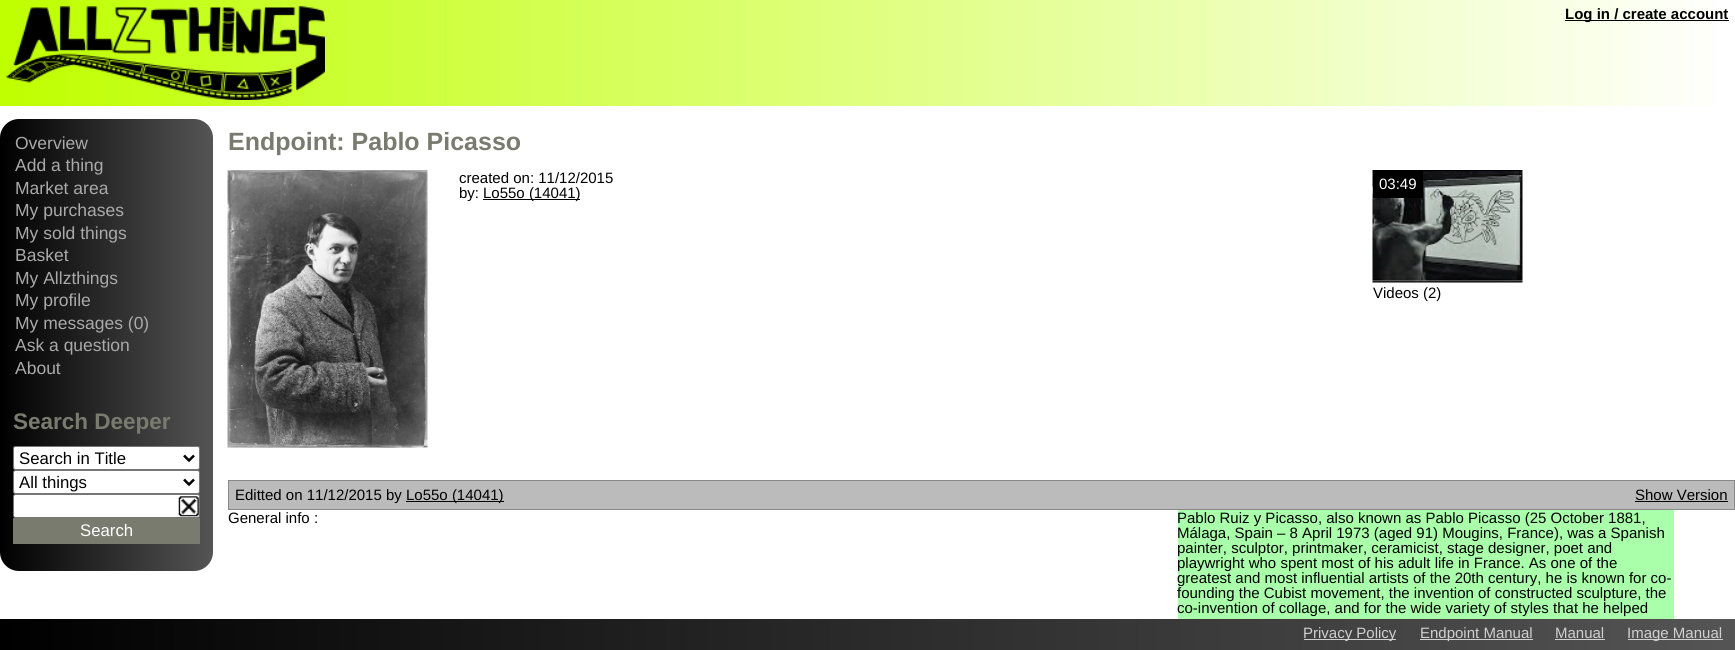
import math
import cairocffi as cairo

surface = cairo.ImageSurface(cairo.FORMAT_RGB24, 1735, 650)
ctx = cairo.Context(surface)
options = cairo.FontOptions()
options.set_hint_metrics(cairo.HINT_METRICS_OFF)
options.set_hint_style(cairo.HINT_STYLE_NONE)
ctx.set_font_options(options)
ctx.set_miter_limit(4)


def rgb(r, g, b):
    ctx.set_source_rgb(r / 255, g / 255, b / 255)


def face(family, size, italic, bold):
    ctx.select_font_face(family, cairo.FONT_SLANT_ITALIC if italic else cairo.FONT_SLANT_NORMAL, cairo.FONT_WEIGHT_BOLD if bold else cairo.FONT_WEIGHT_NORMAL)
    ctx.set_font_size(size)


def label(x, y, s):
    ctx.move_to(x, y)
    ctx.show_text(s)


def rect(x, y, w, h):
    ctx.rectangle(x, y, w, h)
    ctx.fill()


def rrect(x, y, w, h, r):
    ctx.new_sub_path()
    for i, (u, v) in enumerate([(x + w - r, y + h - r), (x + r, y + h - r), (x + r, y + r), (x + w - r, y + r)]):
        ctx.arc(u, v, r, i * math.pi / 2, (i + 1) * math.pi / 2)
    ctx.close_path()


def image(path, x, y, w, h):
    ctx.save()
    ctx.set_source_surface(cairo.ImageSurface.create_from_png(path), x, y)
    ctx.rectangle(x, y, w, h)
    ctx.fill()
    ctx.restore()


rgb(255, 255, 255)
ctx.paint()
gradient = cairo.LinearGradient(0, 53, 1735, 53)
gradient.add_color_stop_rgba(0, 0.749, 1, 0, 1)
gradient.add_color_stop_rgba(1, 1, 1, 1, 1)
ctx.set_source(gradient)
rect(0, 0, 1718, 106)
image('image0.png', 6, 6, 319, 94)
rgb(0, 0, 0)
rect(1565, 20, 164, 1)
face('Liberation Sans', 15, 0, 1)
label(1565, 19, 'Log in / create account')
gradient = cairo.LinearGradient(0, 345, 213, 345)
gradient.add_color_stop_rgba(0, 0, 0, 0, 1)
gradient.add_color_stop_rgba(1, 0.333, 0.333, 0.333, 1)
ctx.set_source(gradient)
rrect(0, 119, 213, 452, 19)
ctx.fill()
face('Liberation Sans', 17.5, 0, 0)
rgb(170, 170, 170)
label(15, 149, 'Overview')
label(15, 171, 'Add a thing')
label(15, 194, 'Market area')
label(15, 216, 'My purchases')
label(15, 239, 'My sold things')
label(15, 261, 'Basket')
label(15, 284, 'My Allzthings')
label(15, 306, 'My profile')
label(15, 329, 'My messages (0)')
label(15, 351, 'Ask a question')
label(15, 374, 'About')
face('Liberation Sans', 22.5, 0, 1)
rgb(121, 123, 110)
label(13, 429, 'Search Deeper')
rgb(255, 255, 255)
rrect(13.5, 446.5, 186, 23, 2)
ctx.fill_preserve()
rgb(118, 118, 118)
ctx.set_line_width(1)
ctx.stroke()
ctx.new_path()
ctx.move_to(184, 455.5)
ctx.line_to(189, 460.5)
ctx.line_to(194, 455.5)
rgb(0, 0, 0)
ctx.set_line_width(2.5)
ctx.stroke()
face('Liberation Sans', 16.75, 0, 0)
label(19, 464, 'Search in Title')
rgb(255, 255, 255)
rrect(13.5, 470.5, 186, 23, 2)
ctx.fill_preserve()
rgb(118, 118, 118)
ctx.set_line_width(1)
ctx.stroke()
ctx.new_path()
ctx.move_to(184, 479.5)
ctx.line_to(189, 484.5)
ctx.line_to(194, 479.5)
rgb(0, 0, 0)
ctx.set_line_width(2.5)
ctx.stroke()
label(19, 488, 'All things')
rgb(255, 255, 255)
rrect(13.5, 494.5, 186, 23, 2)
ctx.fill_preserve()
rgb(118, 118, 118)
ctx.set_line_width(1)
ctx.stroke()
image('image1.png', 178, 496, 21, 21)
rgb(121, 123, 110)
rect(13, 518, 187, 26)
rgb(255, 255, 255)
label(80, 536, 'Search')
face('Liberation Sans', 25, 0, 1)
rgb(121, 123, 110)
label(228, 150, 'Endpoint: Pablo Picasso')
image('image2.png', 227, 170, 201, 278)
face('Liberation Sans', 15, 0, 0)
rgb(0, 0, 0)
label(459, 183, 'created on: 11/12/2015')
label(459, 198, 'by:')
rect(483, 199, 97, 1)
label(483, 198, 'Lo55o (14041)')
image('image3.png', 1372, 170, 151, 113)
rect(1373, 170, 50, 28)
rgb(255, 255, 255)
label(1379, 189, '03:49')
rgb(0, 0, 0)
label(1373, 298, 'Videos (2)')
rgb(187, 187, 187)
rect(229, 481, 1505, 28)
rgb(136, 136, 136)
rect(228, 480, 1507, 1)
rect(1734, 480, 1, 30)
rect(228, 509, 1507, 1)
rect(228, 480, 1, 30)
rgb(0, 0, 0)
label(235, 500, 'Editted on 11/12/2015 by')
rect(406, 501, 98, 1)
label(406, 500, 'Lo55o (14041)')
label(1635, 500, 'Show Version')
rect(1635, 501, 93, 1)
label(228, 523, 'General info :')
rgb(170, 255, 170)
rect(1178, 510, 496, 109)
rgb(0, 0, 0)
label(1177, 523, 'Pablo Ruiz y Picasso, also known as Pablo Picasso (25 October 1881,')
label(1177, 538, 'Málaga, Spain – 8 April 1973 (aged 91) Mougins, France), was a Spanish')
label(1177, 553, 'painter, sculptor, printmaker, ceramicist, stage designer, poet and')
label(1177, 568, 'playwright who spent most of his adult life in France. As one of the')
label(1177, 583, 'greatest and most influential artists of the 20th century, he is known for co-')
label(1177, 598, 'founding the Cubist movement, the invention of constructed sculpture, the')
label(1177, 613, 'co-invention of collage, and for the wide variety of styles that he helped')
gradient = cairo.LinearGradient(0, 634, 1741, 634)
gradient.add_color_stop_rgba(0, 0, 0, 0, 1)
gradient.add_color_stop_rgba(1, 0.333, 0.333, 0.333, 1)
ctx.set_source(gradient)
rect(0, 619, 1735, 31)
rgb(208, 208, 208)
rect(1304, 639, 92, 1)
label(1303, 638, 'Privacy Policy')
rect(1420, 639, 113, 1)
label(1420, 638, 'Endpoint Manual')
label(1555, 638, 'Manual')
rect(1555, 639, 50, 1)
rect(1628, 639, 95, 1)
label(1627, 638, 'Image Manual')
surface.write_to_png('render.png')
